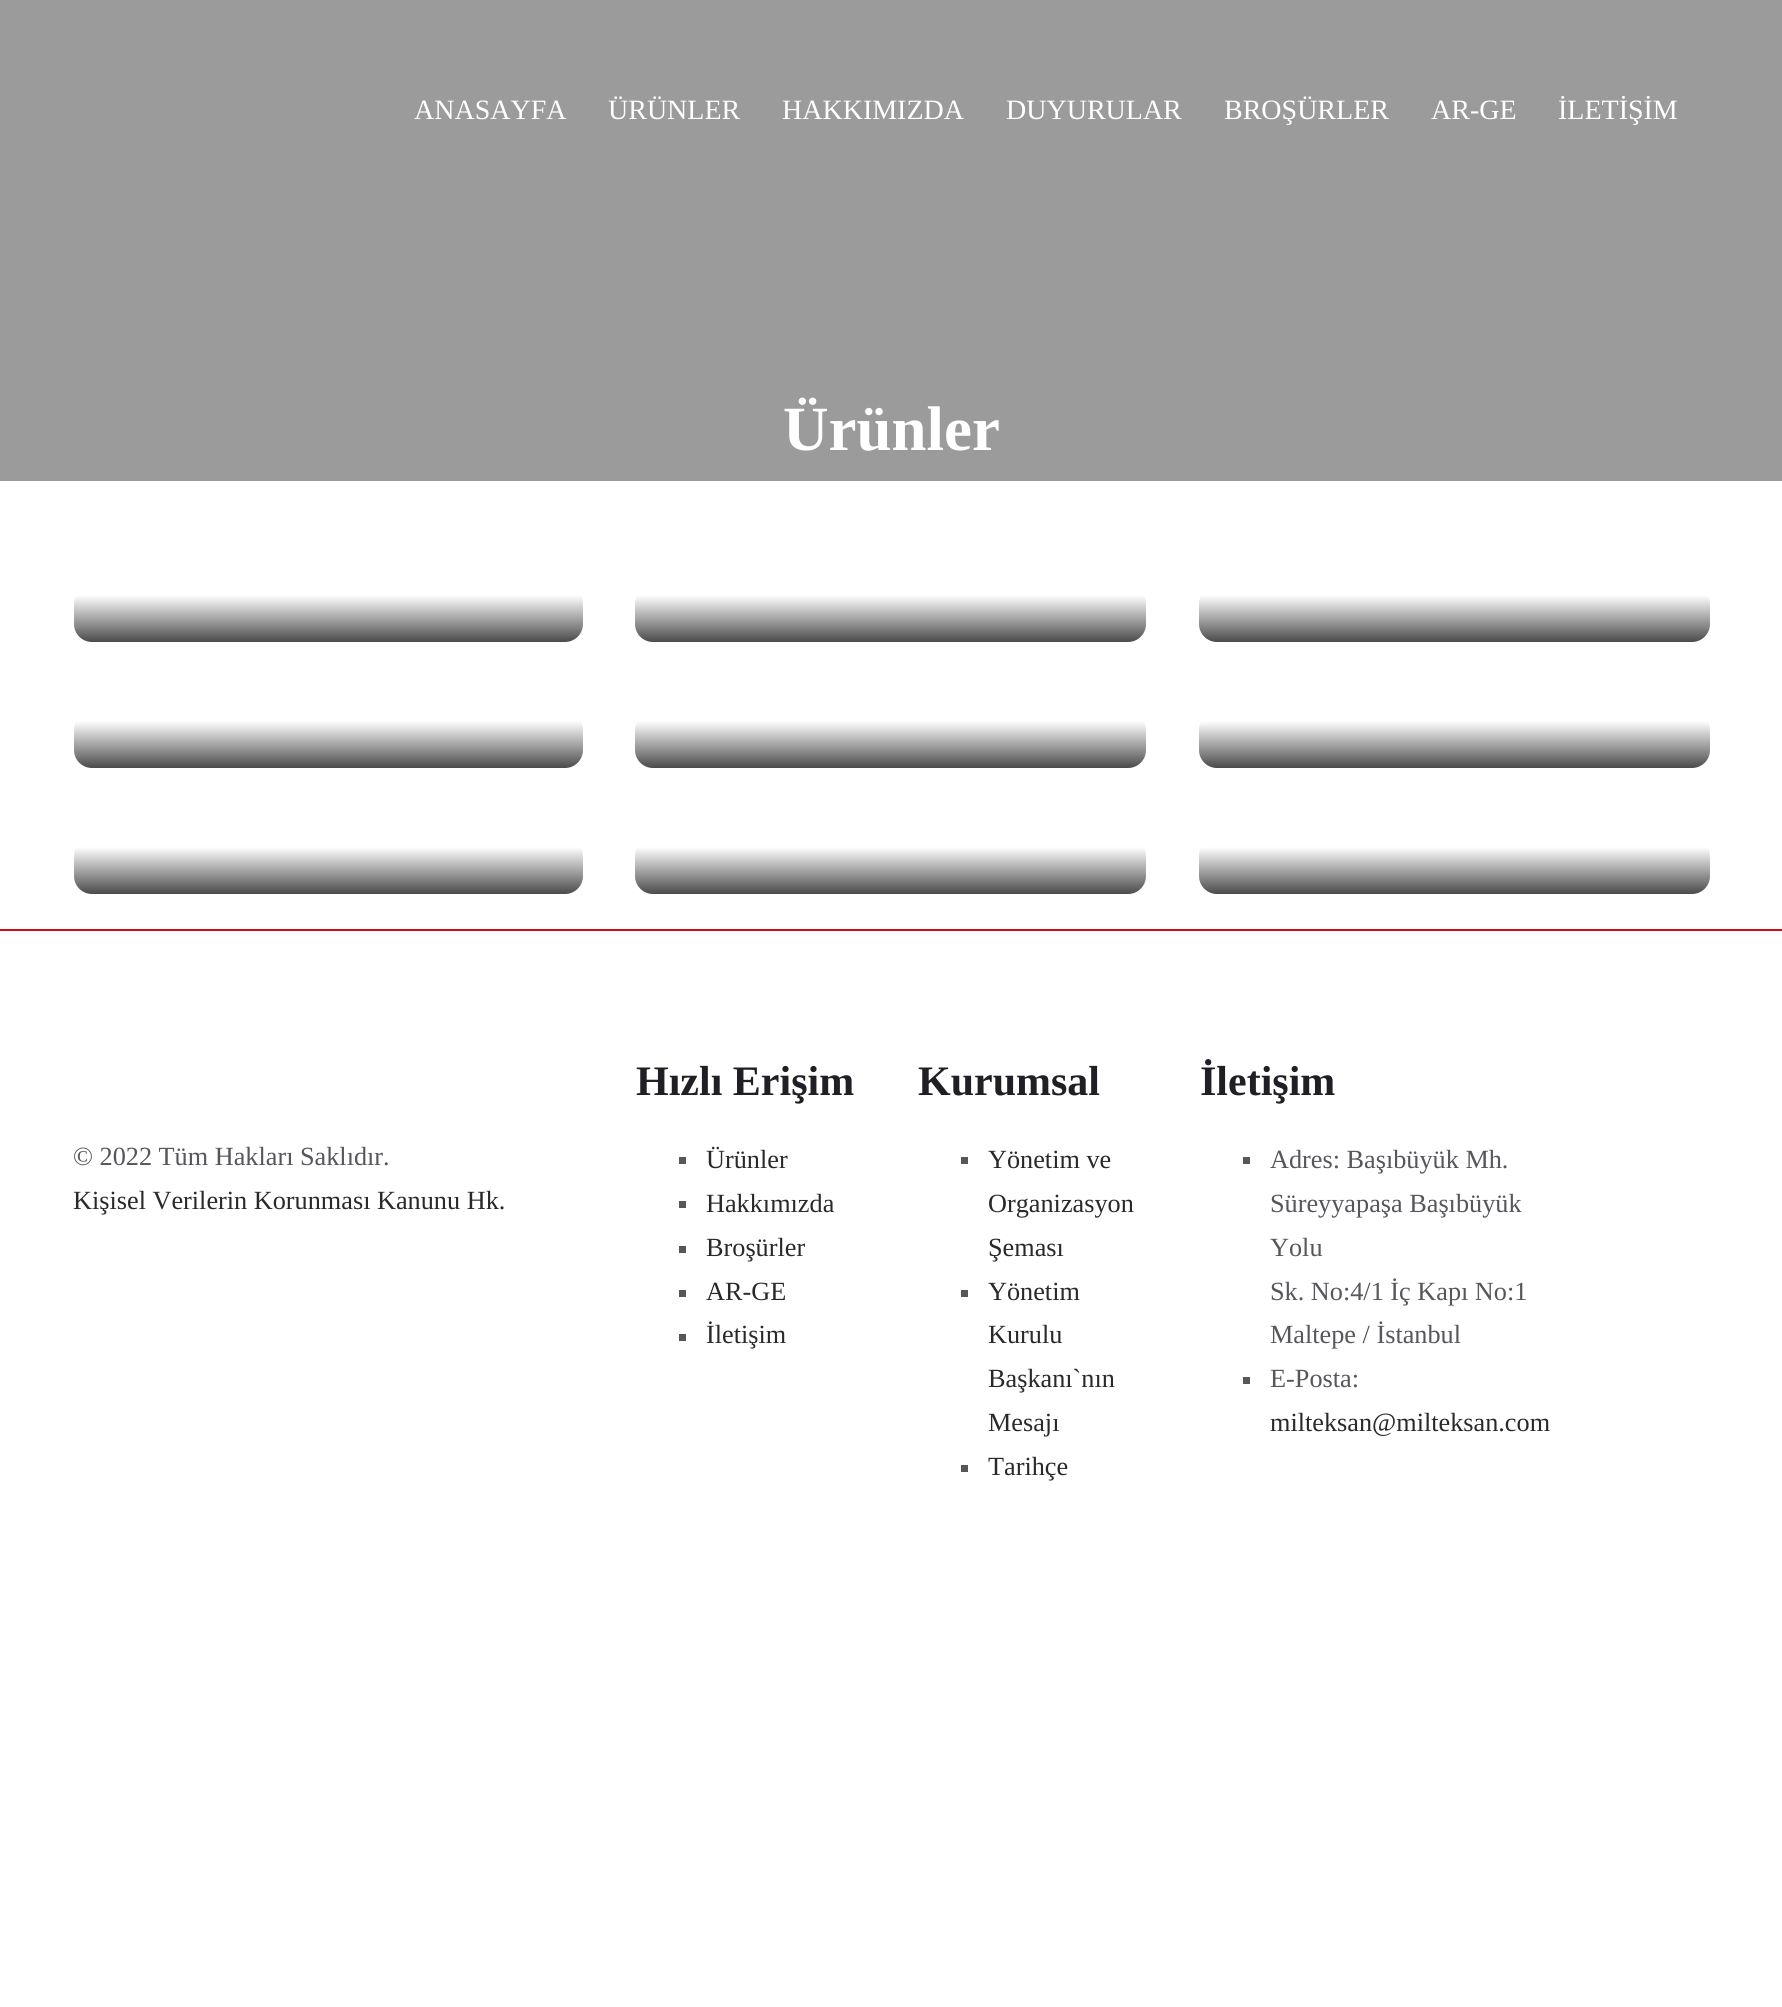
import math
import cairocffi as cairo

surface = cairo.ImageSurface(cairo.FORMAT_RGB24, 1782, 2007)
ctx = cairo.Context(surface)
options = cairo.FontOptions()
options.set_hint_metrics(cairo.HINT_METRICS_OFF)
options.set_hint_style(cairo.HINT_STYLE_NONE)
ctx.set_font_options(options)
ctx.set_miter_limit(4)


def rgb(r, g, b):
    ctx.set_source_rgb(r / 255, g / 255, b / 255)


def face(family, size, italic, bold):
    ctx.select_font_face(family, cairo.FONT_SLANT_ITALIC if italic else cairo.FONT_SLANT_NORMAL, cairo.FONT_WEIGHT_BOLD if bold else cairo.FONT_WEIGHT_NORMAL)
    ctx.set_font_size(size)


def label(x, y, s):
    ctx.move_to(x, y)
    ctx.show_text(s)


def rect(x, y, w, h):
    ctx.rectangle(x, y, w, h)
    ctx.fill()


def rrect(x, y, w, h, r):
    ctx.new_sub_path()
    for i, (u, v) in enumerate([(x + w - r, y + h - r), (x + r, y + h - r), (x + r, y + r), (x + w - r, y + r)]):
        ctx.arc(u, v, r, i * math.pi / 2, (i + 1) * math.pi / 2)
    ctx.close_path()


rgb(255, 255, 255)
ctx.paint()
rgb(155, 155, 155)
rect(0, 0, 1782, 481)
face('Liberation Serif', 28, 0, 0)
rgb(255, 255, 255)
label(414, 119, 'ANASAYFA')
label(608, 119, 'ÜRÜNLER')
label(782, 119, 'HAKKIMIZDA')
label(1006, 119, 'DUYURULAR')
label(1224, 119, 'BROŞÜRLER')
label(1431, 119, 'AR-GE')
label(1558, 119, 'İLETİŞİM')
face('Liberation Serif', 63, 0, 1)
label(783, 450, 'Ürünler')
ctx.save()
rrect(74, 586, 509, 56, 18)
ctx.clip()
gradient = cairo.LinearGradient(328, 595, 328, 642)
gradient.add_color_stop_rgba(0, 1, 1, 1, 1)
gradient.add_color_stop_rgba(1, 0.294, 0.294, 0.294, 1)
ctx.set_source(gradient)
ctx.new_path()
ctx.move_to(74, 595)
ctx.line_to(583, 595)
ctx.line_to(583, 624)
ctx.curve_to(583, 634, 575, 642, 565, 642)
ctx.line_to(92, 642)
ctx.curve_to(82, 642, 74, 634, 74, 624)
ctx.close_path()
ctx.fill()
ctx.restore()
ctx.save()
rrect(635, 586, 511, 56, 18)
ctx.clip()
gradient = cairo.LinearGradient(891, 595, 891, 642)
gradient.add_color_stop_rgba(0, 1, 1, 1, 1)
gradient.add_color_stop_rgba(1, 0.294, 0.294, 0.294, 1)
ctx.set_source(gradient)
ctx.new_path()
ctx.move_to(635, 595)
ctx.line_to(1146, 595)
ctx.line_to(1146, 624)
ctx.curve_to(1146, 634, 1138, 642, 1128, 642)
ctx.line_to(653, 642)
ctx.curve_to(643, 642, 635, 634, 635, 624)
ctx.close_path()
ctx.fill()
ctx.restore()
ctx.save()
rrect(1199, 586, 511, 56, 18)
ctx.clip()
gradient = cairo.LinearGradient(1454, 595, 1454, 642)
gradient.add_color_stop_rgba(0, 1, 1, 1, 1)
gradient.add_color_stop_rgba(1, 0.294, 0.294, 0.294, 1)
ctx.set_source(gradient)
ctx.new_path()
ctx.move_to(1199, 595)
ctx.line_to(1710, 595)
ctx.line_to(1710, 624)
ctx.curve_to(1710, 634, 1702, 642, 1692, 642)
ctx.line_to(1217, 642)
ctx.curve_to(1207, 642, 1199, 634, 1199, 624)
ctx.close_path()
ctx.fill()
ctx.restore()
ctx.save()
rrect(74, 712, 509, 56, 18)
ctx.clip()
gradient = cairo.LinearGradient(328, 721, 328, 768)
gradient.add_color_stop_rgba(0, 1, 1, 1, 1)
gradient.add_color_stop_rgba(1, 0.294, 0.294, 0.294, 1)
ctx.set_source(gradient)
ctx.new_path()
ctx.move_to(74, 721)
ctx.line_to(583, 721)
ctx.line_to(583, 750)
ctx.curve_to(583, 760, 575, 768, 565, 768)
ctx.line_to(92, 768)
ctx.curve_to(82, 768, 74, 760, 74, 750)
ctx.close_path()
ctx.fill()
ctx.restore()
ctx.save()
rrect(635, 712, 511, 56, 18)
ctx.clip()
gradient = cairo.LinearGradient(891, 721, 891, 768)
gradient.add_color_stop_rgba(0, 1, 1, 1, 1)
gradient.add_color_stop_rgba(1, 0.294, 0.294, 0.294, 1)
ctx.set_source(gradient)
ctx.new_path()
ctx.move_to(635, 721)
ctx.line_to(1146, 721)
ctx.line_to(1146, 750)
ctx.curve_to(1146, 760, 1138, 768, 1128, 768)
ctx.line_to(653, 768)
ctx.curve_to(643, 768, 635, 760, 635, 750)
ctx.close_path()
ctx.fill()
ctx.restore()
ctx.save()
rrect(1199, 712, 511, 56, 18)
ctx.clip()
gradient = cairo.LinearGradient(1454, 721, 1454, 768)
gradient.add_color_stop_rgba(0, 1, 1, 1, 1)
gradient.add_color_stop_rgba(1, 0.294, 0.294, 0.294, 1)
ctx.set_source(gradient)
ctx.new_path()
ctx.move_to(1199, 721)
ctx.line_to(1710, 721)
ctx.line_to(1710, 750)
ctx.curve_to(1710, 760, 1702, 768, 1692, 768)
ctx.line_to(1217, 768)
ctx.curve_to(1207, 768, 1199, 760, 1199, 750)
ctx.close_path()
ctx.fill()
ctx.restore()
ctx.save()
rrect(74, 838, 509, 56, 18)
ctx.clip()
gradient = cairo.LinearGradient(328, 847, 328, 894)
gradient.add_color_stop_rgba(0, 1, 1, 1, 1)
gradient.add_color_stop_rgba(1, 0.294, 0.294, 0.294, 1)
ctx.set_source(gradient)
ctx.new_path()
ctx.move_to(74, 847)
ctx.line_to(583, 847)
ctx.line_to(583, 876)
ctx.curve_to(583, 886, 575, 894, 565, 894)
ctx.line_to(92, 894)
ctx.curve_to(82, 894, 74, 886, 74, 876)
ctx.close_path()
ctx.fill()
ctx.restore()
ctx.save()
rrect(635, 838, 511, 56, 18)
ctx.clip()
gradient = cairo.LinearGradient(891, 847, 891, 894)
gradient.add_color_stop_rgba(0, 1, 1, 1, 1)
gradient.add_color_stop_rgba(1, 0.294, 0.294, 0.294, 1)
ctx.set_source(gradient)
ctx.new_path()
ctx.move_to(635, 847)
ctx.line_to(1146, 847)
ctx.line_to(1146, 876)
ctx.curve_to(1146, 886, 1138, 894, 1128, 894)
ctx.line_to(653, 894)
ctx.curve_to(643, 894, 635, 886, 635, 876)
ctx.close_path()
ctx.fill()
ctx.restore()
ctx.save()
rrect(1199, 838, 511, 56, 18)
ctx.clip()
gradient = cairo.LinearGradient(1454, 847, 1454, 894)
gradient.add_color_stop_rgba(0, 1, 1, 1, 1)
gradient.add_color_stop_rgba(1, 0.294, 0.294, 0.294, 1)
ctx.set_source(gradient)
ctx.new_path()
ctx.move_to(1199, 847)
ctx.line_to(1710, 847)
ctx.line_to(1710, 876)
ctx.curve_to(1710, 886, 1702, 894, 1692, 894)
ctx.line_to(1217, 894)
ctx.curve_to(1207, 894, 1199, 886, 1199, 876)
ctx.close_path()
ctx.fill()
ctx.restore()
rgb(211, 9, 21)
rect(0, 929, 1782, 2)
face('Liberation Serif', 26.25, 0, 0)
rgb(86, 86, 91)
label(73, 1165, '© 2022 Tüm Hakları Saklıdır.')
rgb(41, 41, 41)
label(73, 1209, 'Kişisel Verilerin Korunması Kanunu Hk.')
face('Liberation Serif', 42, 0, 1)
rgb(31, 31, 37)
label(636, 1095, 'Hızlı Erişim')
rgb(86, 86, 91)
rect(679, 1157, 7, 7)
face('Liberation Serif', 26.25, 0, 0)
rgb(41, 41, 41)
label(706, 1168, 'Ürünler')
rgb(86, 86, 91)
rect(679, 1201, 7, 7)
rgb(41, 41, 41)
label(706, 1212, 'Hakkımızda')
rgb(86, 86, 91)
rect(679, 1246, 7, 7)
rgb(41, 41, 41)
label(706, 1256, 'Broşürler')
rgb(86, 86, 91)
rect(679, 1290, 7, 7)
rgb(41, 41, 41)
label(706, 1300, 'AR-GE')
rgb(86, 86, 91)
rect(679, 1334, 7, 7)
rgb(41, 41, 41)
label(706, 1343, 'İletişim')
face('Liberation Serif', 42, 0, 1)
rgb(31, 31, 37)
label(918, 1095, 'Kurumsal')
rgb(86, 86, 91)
rect(961, 1157, 7, 7)
face('Liberation Serif', 26.25, 0, 0)
rgb(41, 41, 41)
label(988, 1168, 'Yönetim ve')
label(988, 1212, 'Organizasyon')
label(988, 1256, 'Şeması')
rgb(86, 86, 91)
rect(961, 1290, 7, 7)
rgb(41, 41, 41)
label(988, 1300, 'Yönetim')
label(988, 1343, 'Kurulu')
label(988, 1387, 'Başkanı`nın')
label(988, 1431, 'Mesajı')
rgb(86, 86, 91)
rect(961, 1465, 7, 7)
rgb(41, 41, 41)
label(988, 1475, 'Tarihçe')
face('Liberation Serif', 42, 0, 1)
rgb(31, 31, 37)
label(1200, 1095, 'İletişim')
rgb(86, 86, 91)
rect(1243, 1157, 7, 7)
face('Liberation Serif', 26.25, 0, 0)
label(1270, 1168, 'Adres: Başıbüyük Mh.')
label(1270, 1212, 'Süreyyapaşa Başıbüyük')
label(1270, 1256, 'Yolu')
label(1270, 1300, 'Sk. No:4/1 İç Kapı No:1')
label(1270, 1343, 'Maltepe / İstanbul')
rect(1243, 1377, 7, 7)
label(1270, 1387, 'E-Posta:')
rgb(41, 41, 41)
label(1270, 1431, 'milteksan@milteksan.com')
surface.write_to_png('render.png')
